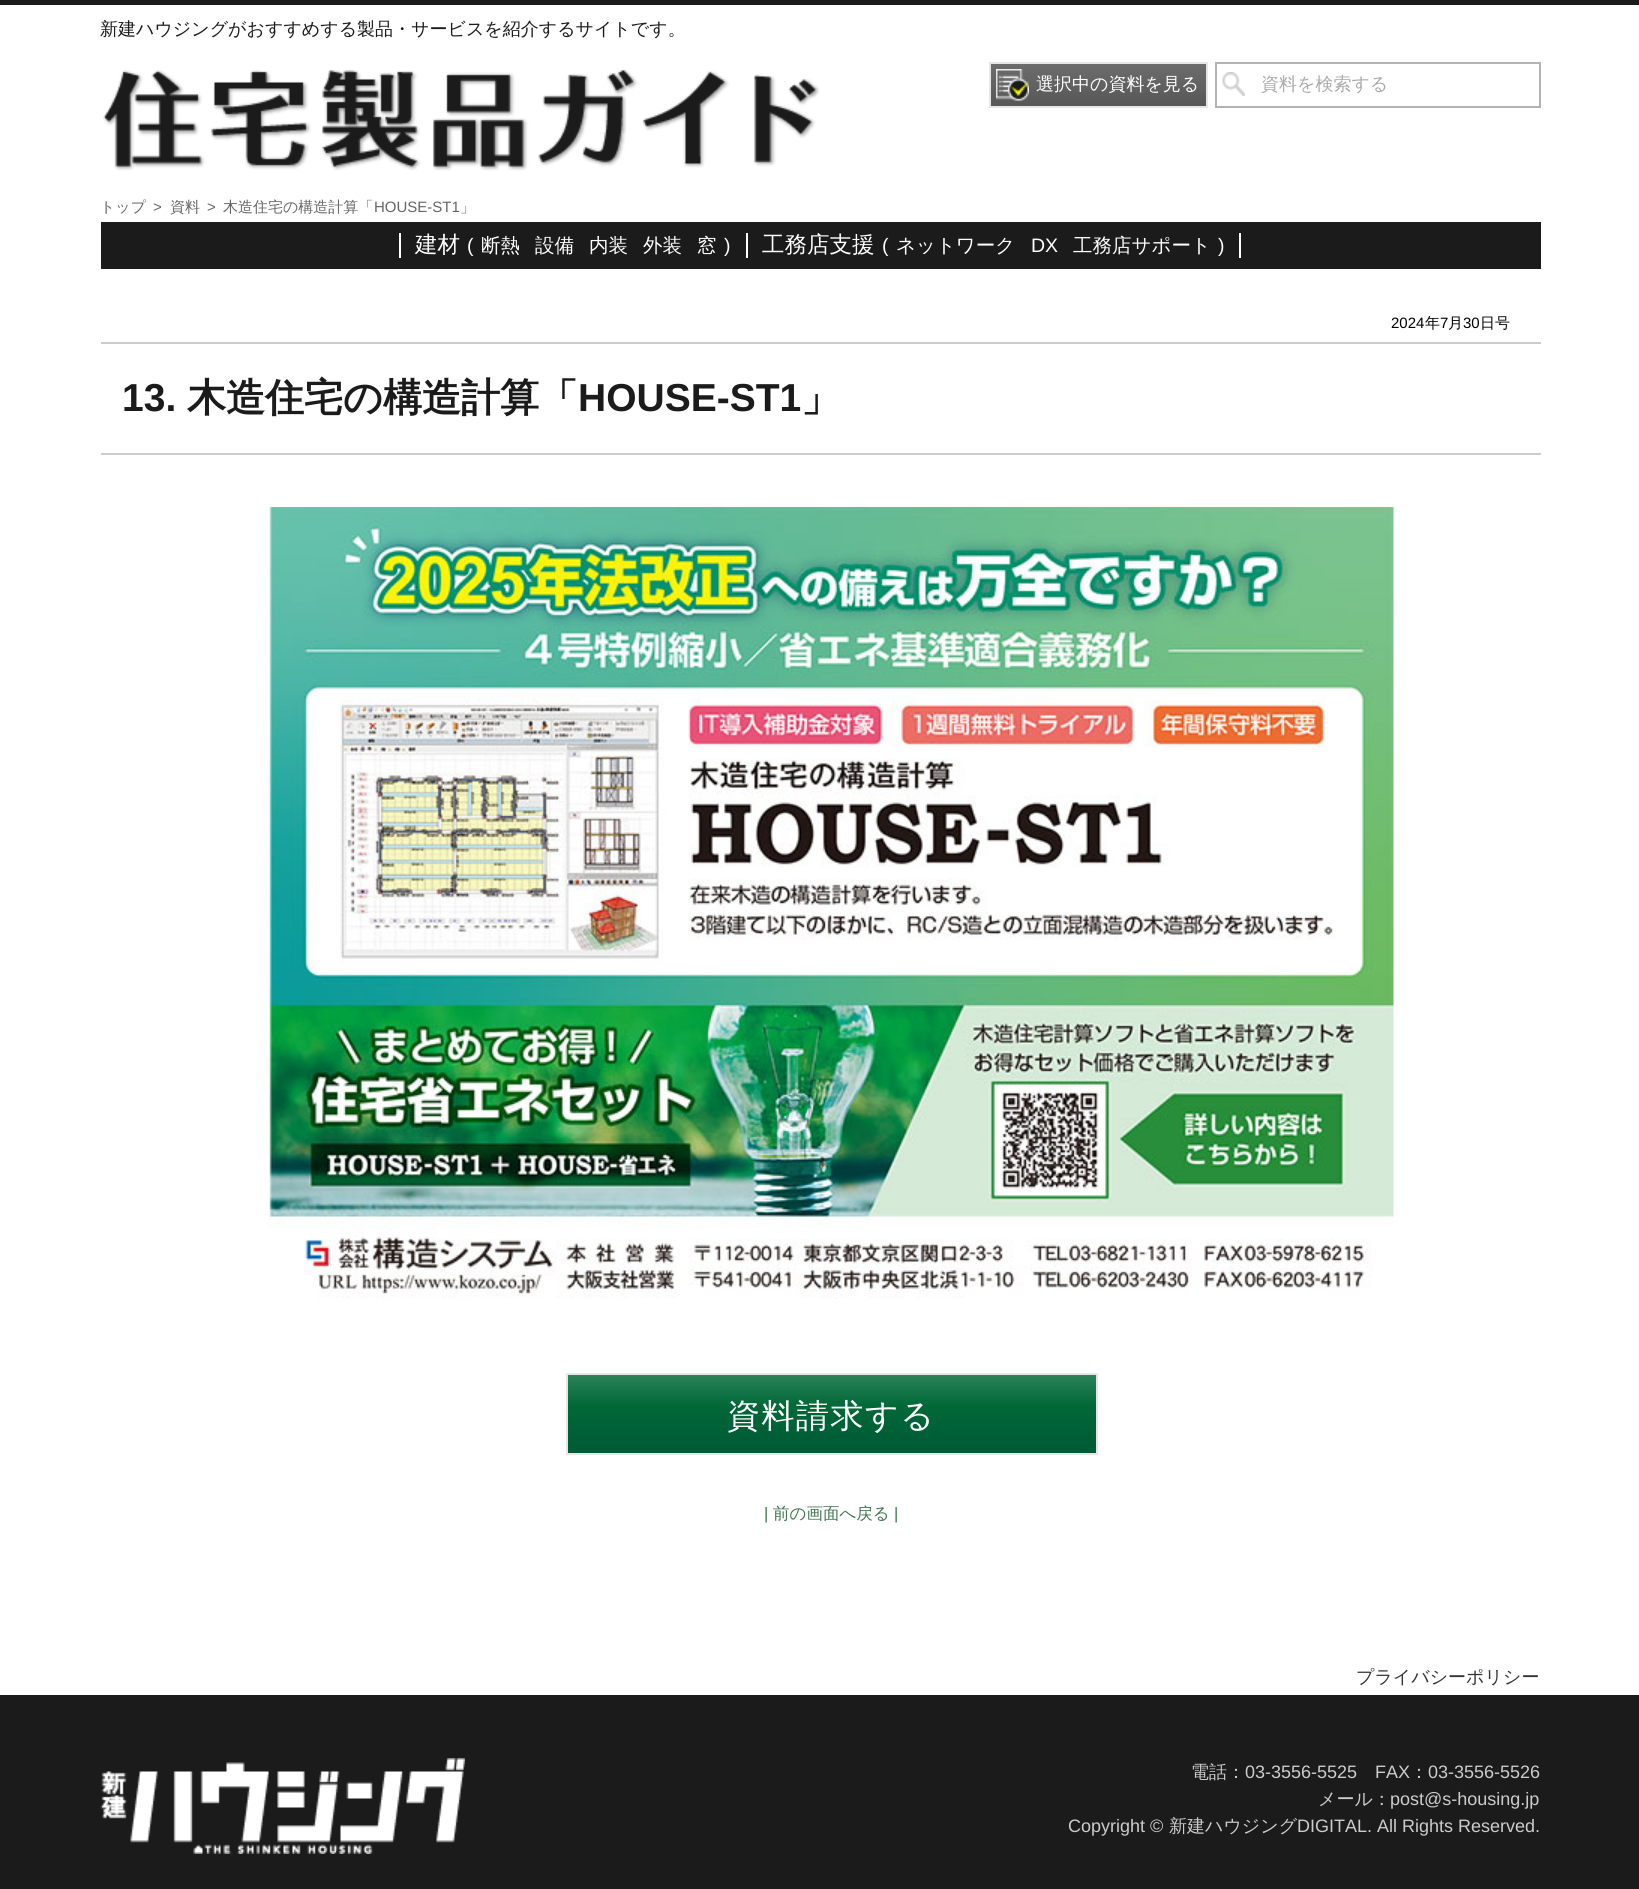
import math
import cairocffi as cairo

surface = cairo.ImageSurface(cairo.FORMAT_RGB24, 1639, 1889)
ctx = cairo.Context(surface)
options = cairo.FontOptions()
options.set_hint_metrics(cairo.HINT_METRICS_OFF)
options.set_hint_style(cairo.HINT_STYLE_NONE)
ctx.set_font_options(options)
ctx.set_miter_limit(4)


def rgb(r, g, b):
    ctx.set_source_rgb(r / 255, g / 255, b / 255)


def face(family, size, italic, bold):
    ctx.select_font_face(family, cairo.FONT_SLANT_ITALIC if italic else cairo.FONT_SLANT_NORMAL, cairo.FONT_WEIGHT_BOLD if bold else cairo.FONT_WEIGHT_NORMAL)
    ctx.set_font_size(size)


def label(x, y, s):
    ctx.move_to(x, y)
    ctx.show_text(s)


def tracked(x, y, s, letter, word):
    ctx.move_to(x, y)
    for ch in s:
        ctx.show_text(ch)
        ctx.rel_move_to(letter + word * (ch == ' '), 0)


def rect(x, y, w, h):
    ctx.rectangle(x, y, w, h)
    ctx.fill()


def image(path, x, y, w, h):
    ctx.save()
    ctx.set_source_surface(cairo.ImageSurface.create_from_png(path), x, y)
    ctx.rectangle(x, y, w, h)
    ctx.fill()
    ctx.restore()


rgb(255, 255, 255)
ctx.paint()
rgb(27, 27, 27)
rect(0, 0, 1639, 5)
face('WenQuanYi Zen Hei Medium', 18, 0, 0)
label(100, 35, '新建ハウジングがおすすめする製品・サービスを紹介するサイトです。')
image('image0.png', 103, 69, 717, 102)
gradient = cairo.LinearGradient(1098, 63, 1098, 107)
gradient.add_color_stop_rgba(0, 0.427, 0.427, 0.427, 1)
gradient.add_color_stop_rgba(1, 0.337, 0.337, 0.337, 1)
ctx.set_source(gradient)
rect(991, 64, 215, 42)
ctx.rectangle(990, 63, 217, 44)
rgb(230, 230, 230)
ctx.stroke()
image('image1.png', 996, 69, 33, 32)
rgb(255, 255, 255)
label(1036, 90, '選択中の資料を見る')
ctx.rectangle(1216, 63, 324, 44)
rgb(179, 179, 179)
ctx.stroke()
image('image2.png', 1222, 72, 23, 24)
rgb(170, 170, 170)
label(1261, 90, '資料を検索する')
face('WenQuanYi Zen Hei Medium', 15, 0, 0)
rgb(102, 102, 102)
label(100, 212, 'トップ')
face('Liberation Sans', 15, 0, 0)
label(153, 212, '>')
face('WenQuanYi Zen Hei Medium', 15, 0, 0)
label(170, 212, '資料')
face('Liberation Sans', 15, 0, 0)
label(207, 212, '>')
face('WenQuanYi Zen Hei Medium', 15, 0, 0)
label(223, 212, '木造住宅の構造計算「')
face('Liberation Sans', 15, 0, 0)
label(374, 212, 'HOUSE-ST1')
face('WenQuanYi Zen Hei Medium', 15, 0, 0)
label(460, 212, '」')
rgb(27, 27, 27)
rect(101, 222, 1440, 47)
rgb(255, 255, 255)
rect(746, 233, 2, 25)
rect(399, 233, 2, 25)
face('WenQuanYi Zen Hei Medium', 22.5, 0, 0)
label(415, 252, '建材')
face('Liberation Sans', 19.5, 0, 0)
label(467, 252, '(')
face('WenQuanYi Zen Hei Medium', 19.5, 0, 0)
label(481, 252, '断熱')
label(535, 252, '設備')
label(589, 252, '内装')
label(643, 252, '外装')
label(697, 252, '窓')
face('Liberation Sans', 19.5, 0, 0)
label(724, 252, ')')
rect(1239, 233, 2, 25)
face('WenQuanYi Zen Hei Medium', 22.5, 0, 0)
label(762, 252, '工務店支援')
face('Liberation Sans', 19.5, 0, 0)
label(882, 252, '(')
face('WenQuanYi Zen Hei Medium', 19.5, 0, 0)
label(896, 252, 'ネットワーク')
face('Liberation Sans', 19.5, 0, 0)
label(1031, 252, 'DX')
face('WenQuanYi Zen Hei Medium', 19.5, 0, 0)
label(1073, 252, '工務店サポート')
face('Liberation Sans', 19.5, 0, 0)
label(1218, 252, ')')
face('Liberation Sans', 15, 0, 0)
rgb(0, 0, 0)
label(1391, 328, '2024')
face('WenQuanYi Zen Hei Medium', 15, 0, 0)
label(1425, 328, '年')
face('Liberation Sans', 15, 0, 0)
label(1440, 328, '7')
face('WenQuanYi Zen Hei Medium', 15, 0, 0)
label(1448, 328, '月')
face('Liberation Sans', 15, 0, 0)
label(1463, 328, '30')
face('WenQuanYi Zen Hei Medium', 15, 0, 0)
label(1480, 328, '日号')
rgb(204, 204, 204)
rect(101, 342, 1440, 2)
rect(101, 453, 1440, 2)
face('Liberation Sans', 39, 0, 1)
rgb(27, 27, 27)
label(122, 411, '13.')
face('WenQuanYi Zen Hei', 39, 0, 1)
label(187, 411, '木造住宅の構造計算「')
face('Liberation Sans', 39, 0, 1)
label(578, 411, 'HOUSE-ST1')
face('WenQuanYi Zen Hei', 39, 0, 1)
label(801, 411, '」')
image('image3.png', 268, 507, 1126, 792)
gradient = cairo.LinearGradient(832, 1374, 832, 1454)
gradient.add_color_stop_rgba(0, 0.18, 0.514, 0.357, 1)
gradient.add_color_stop_rgba(0.4, 0, 0.408, 0.216, 1)
gradient.add_color_stop_rgba(1, 0, 0.349, 0.216, 1)
ctx.set_source(gradient)
rect(568, 1375, 528, 78)
ctx.rectangle(567, 1374, 530, 80)
rgb(230, 230, 230)
ctx.stroke()
face('WenQuanYi Zen Hei Medium', 33, 0, 0)
rgb(255, 255, 255)
tracked(727, 1427, '資料請求する', 1.5, 0)
face('Liberation Sans', 16.5, 0, 0)
rgb(64, 117, 79)
label(764, 1519, '|')
face('WenQuanYi Zen Hei Medium', 16.5, 0, 0)
label(773, 1519, '前の画面へ戻る')
face('Liberation Sans', 16.5, 0, 0)
label(894, 1519, '|')
rgb(27, 27, 27)
rect(0, 1695, 1639, 194)
face('WenQuanYi Zen Hei Medium', 18, 0, 0)
rgb(51, 51, 51)
label(1356, 1683, 'プライバシーポリシー')
image('image4.png', 100, 1758, 365, 96)
rgb(204, 204, 204)
label(1191, 1778, '電話：')
face('Liberation Sans', 18, 0, 0)
label(1245, 1778, '03-3556-5525')
label(1375, 1778, 'FAX')
face('WenQuanYi Zen Hei Medium', 18, 0, 0)
label(1410, 1778, '：')
face('Liberation Sans', 18, 0, 0)
label(1428, 1778, '03-3556-5526')
face('WenQuanYi Zen Hei Medium', 18, 0, 0)
label(1318, 1805, 'メール：')
face('Liberation Sans', 18, 0, 0)
label(1390, 1805, 'post@s-housing.jp')
label(1068, 1832, 'Copyright ©')
face('WenQuanYi Zen Hei Medium', 18, 0, 0)
label(1169, 1832, '新建ハウジング')
face('Liberation Sans', 18, 0, 0)
label(1297, 1832, 'DIGITAL. All Rights Reserved.')
surface.write_to_png('render.png')
